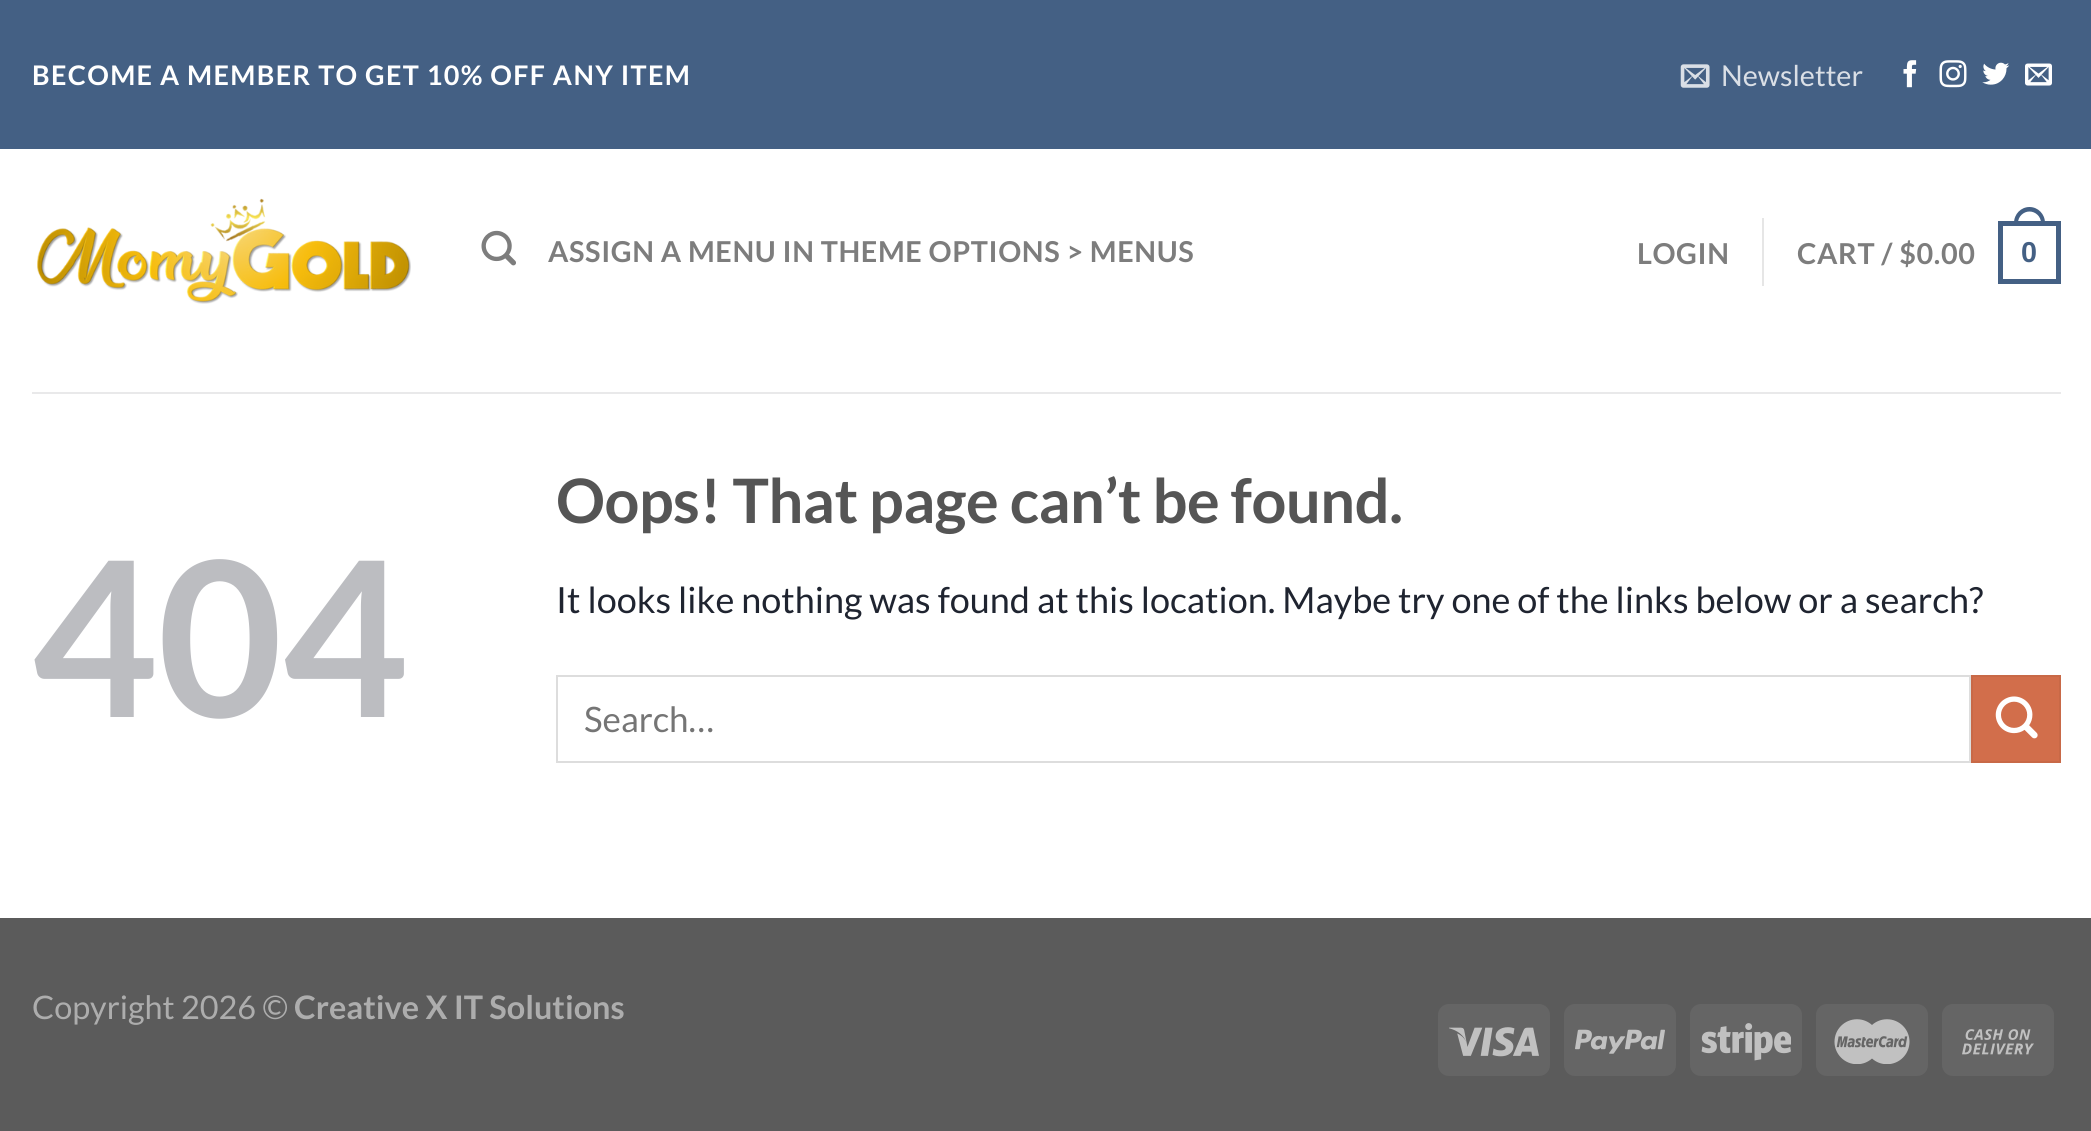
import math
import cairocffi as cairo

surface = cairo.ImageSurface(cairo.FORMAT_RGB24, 2091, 1131)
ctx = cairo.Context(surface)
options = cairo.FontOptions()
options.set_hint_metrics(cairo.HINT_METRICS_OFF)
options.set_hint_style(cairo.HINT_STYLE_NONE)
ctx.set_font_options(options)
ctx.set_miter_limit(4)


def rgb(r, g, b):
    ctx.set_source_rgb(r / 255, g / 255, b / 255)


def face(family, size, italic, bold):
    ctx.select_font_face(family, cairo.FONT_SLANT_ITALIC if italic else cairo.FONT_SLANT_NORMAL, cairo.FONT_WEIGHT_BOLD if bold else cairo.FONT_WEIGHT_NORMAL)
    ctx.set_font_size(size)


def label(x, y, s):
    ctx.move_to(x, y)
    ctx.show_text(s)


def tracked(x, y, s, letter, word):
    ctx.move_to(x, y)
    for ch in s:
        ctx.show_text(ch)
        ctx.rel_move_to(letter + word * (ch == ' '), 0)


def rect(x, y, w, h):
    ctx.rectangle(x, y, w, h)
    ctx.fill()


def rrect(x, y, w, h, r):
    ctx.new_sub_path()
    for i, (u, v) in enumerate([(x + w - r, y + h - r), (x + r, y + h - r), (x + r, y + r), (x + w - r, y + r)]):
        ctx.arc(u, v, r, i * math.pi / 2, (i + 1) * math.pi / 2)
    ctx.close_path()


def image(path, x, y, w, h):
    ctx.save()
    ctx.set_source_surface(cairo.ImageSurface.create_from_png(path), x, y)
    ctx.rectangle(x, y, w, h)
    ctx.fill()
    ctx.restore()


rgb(255, 255, 255)
ctx.paint()
rgb(68, 96, 132)
rect(0, 0, 2091, 149)
face('Lato', 27, 0, 1)
rgb(255, 255, 255)
tracked(32, 85, 'BECOME A MEMBER TO GET 10% OFF ANY ITEM', 1.35, 0)
image('image0.png', 1680, 64, 30, 24)
face('Lato', 28.8, 0, 0)
rgb(218, 223, 230)
label(1721, 86, 'Newsletter')
image('image1.png', 1903, 60, 14, 28)
image('image2.png', 1939, 60, 28, 28)
image('image3.png', 1982, 62, 28, 23)
image('image4.png', 2025, 63, 27, 23)
image('image5.png', 37, 198, 374, 106)
image('image6.png', 481, 230, 35, 36)
face('Lato', 28.8, 0, 1)
rgb(125, 125, 125)
tracked(548, 262, 'ASSIGN A MENU IN THEME OPTIONS > MENUS', 0.6, 0)
tracked(1637, 264, 'LOGIN', 0.6, 0)
rgb(230, 230, 230)
rect(1762, 218, 2, 68)
rgb(125, 125, 125)
tracked(1797, 264, 'CART / $0.00', 0.6, 0)
ctx.rectangle(2000.5, 223.5, 58, 58)
rgb(68, 96, 132)
ctx.set_line_width(5)
ctx.stroke()
ctx.set_fill_rule(cairo.FILL_RULE_EVEN_ODD)
ctx.new_path()
ctx.move_to(2029.5, 207)
ctx.curve_to(2038, 207, 2045, 214, 2045, 223)
ctx.line_to(2045, 225)
ctx.line_to(2014, 225)
ctx.line_to(2014, 223)
ctx.curve_to(2014, 214, 2021, 207, 2029.5, 207)
ctx.close_path()
ctx.move_to(2029.5, 211.5)
ctx.curve_to(2035.5, 211.5, 2041, 216.5, 2041, 223)
ctx.line_to(2041, 225)
ctx.line_to(2018, 225)
ctx.line_to(2018, 223)
ctx.curve_to(2018, 216.5, 2023.5, 211.5, 2029.5, 211.5)
ctx.close_path()
ctx.fill()
face('Liberation Sans', 28.8, 0, 1)
tracked(2021, 262, '0', 0.6, 0)
rgb(233, 233, 234)
rect(32, 392, 2029, 2)
face('Lato', 216, 0, 1)
rgb(188, 189, 193)
label(32, 717, '404')
face('Lato', 61.25, 0, 1)
rgb(85, 85, 85)
tracked(556, 523, 'Oops! That page can’t be found.', -0.45, 0)
face('Lato', 36, 0, 0)
rgb(31, 36, 48)
label(556, 613, 'It looks like nothing was found at this location. Maybe try one of the links below or a search?')
ctx.rectangle(557, 676, 1413, 86)
rgb(221, 221, 221)
ctx.set_line_width(2)
ctx.stroke()
face('Lato', 35, 0, 0)
rgb(117, 117, 117)
label(584, 732, 'Search…')
rgb(210, 110, 75)
ctx.rectangle(1972, 676, 88, 86)
ctx.fill_preserve()
rgb(200, 105, 71)
ctx.stroke()
image('image7.png', 1995, 696, 43, 43)
rgb(91, 91, 91)
rect(0, 918, 2091, 213)
face('Lato', 32.4, 0, 0)
rgb(173, 173, 173)
label(32, 1019, 'Copyright 2026 ©')
face('Lato', 32.4, 0, 1)
label(294, 1019, 'Creative X IT Solutions')
rgb(101, 101, 101)
rrect(1438, 1004, 112, 72, 11)
ctx.fill()
image('image8.png', 1449, 1027, 90, 30)
rrect(1564, 1004, 112, 72, 11)
ctx.fill()
image('image9.png', 1575, 1029, 90, 25)
rrect(1690, 1004, 112, 72, 11)
ctx.fill()
image('image10.png', 1701, 1023, 90, 38)
rrect(1816, 1004, 112, 72, 11)
ctx.fill()
image('image11.png', 1834, 1019, 76, 45)
rrect(1942, 1004, 112, 72, 11)
ctx.fill()
image('image12.png', 1962, 1029, 72, 26)
surface.write_to_png('render.png')
